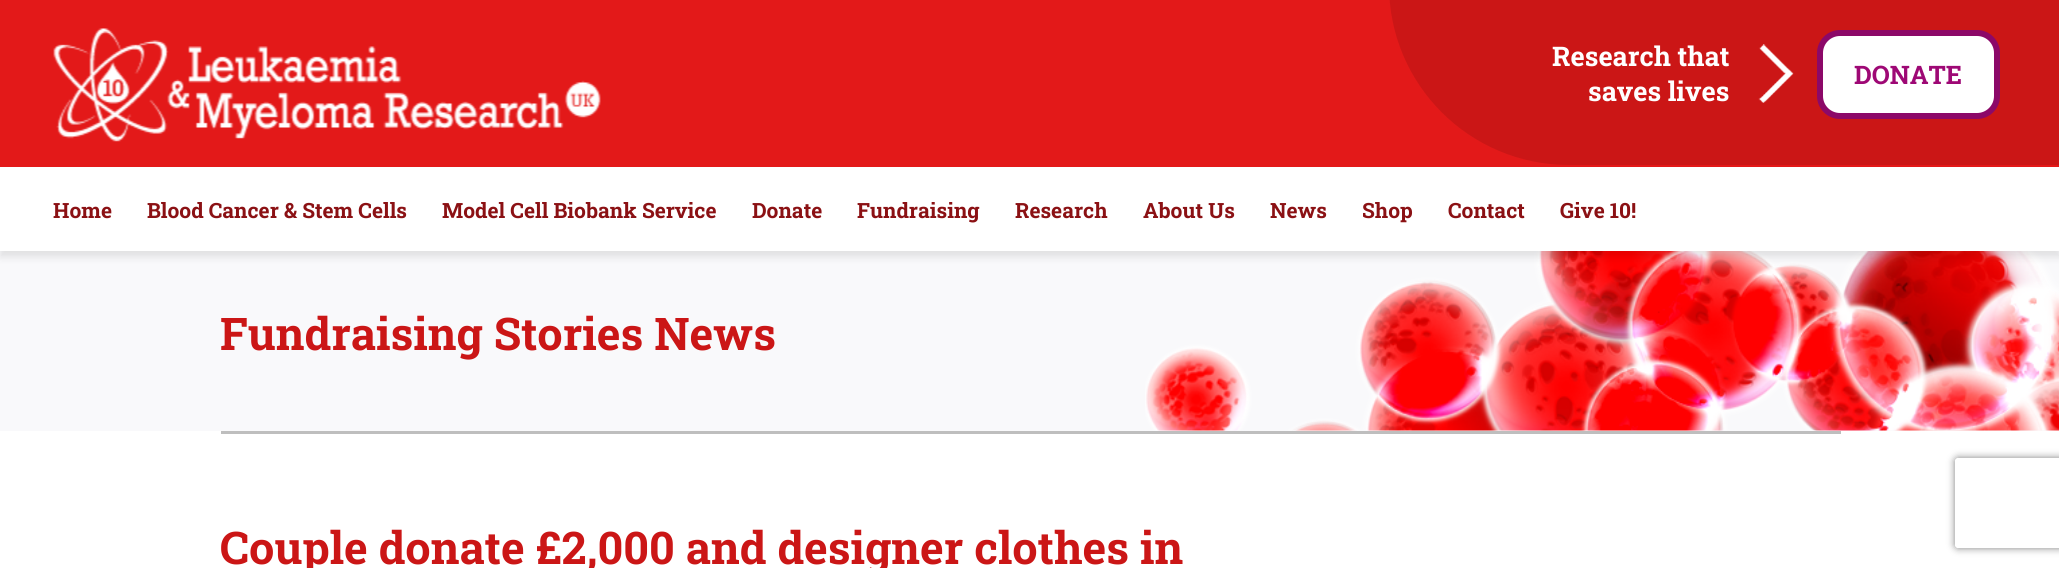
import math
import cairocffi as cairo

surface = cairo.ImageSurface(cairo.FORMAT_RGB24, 2059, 568)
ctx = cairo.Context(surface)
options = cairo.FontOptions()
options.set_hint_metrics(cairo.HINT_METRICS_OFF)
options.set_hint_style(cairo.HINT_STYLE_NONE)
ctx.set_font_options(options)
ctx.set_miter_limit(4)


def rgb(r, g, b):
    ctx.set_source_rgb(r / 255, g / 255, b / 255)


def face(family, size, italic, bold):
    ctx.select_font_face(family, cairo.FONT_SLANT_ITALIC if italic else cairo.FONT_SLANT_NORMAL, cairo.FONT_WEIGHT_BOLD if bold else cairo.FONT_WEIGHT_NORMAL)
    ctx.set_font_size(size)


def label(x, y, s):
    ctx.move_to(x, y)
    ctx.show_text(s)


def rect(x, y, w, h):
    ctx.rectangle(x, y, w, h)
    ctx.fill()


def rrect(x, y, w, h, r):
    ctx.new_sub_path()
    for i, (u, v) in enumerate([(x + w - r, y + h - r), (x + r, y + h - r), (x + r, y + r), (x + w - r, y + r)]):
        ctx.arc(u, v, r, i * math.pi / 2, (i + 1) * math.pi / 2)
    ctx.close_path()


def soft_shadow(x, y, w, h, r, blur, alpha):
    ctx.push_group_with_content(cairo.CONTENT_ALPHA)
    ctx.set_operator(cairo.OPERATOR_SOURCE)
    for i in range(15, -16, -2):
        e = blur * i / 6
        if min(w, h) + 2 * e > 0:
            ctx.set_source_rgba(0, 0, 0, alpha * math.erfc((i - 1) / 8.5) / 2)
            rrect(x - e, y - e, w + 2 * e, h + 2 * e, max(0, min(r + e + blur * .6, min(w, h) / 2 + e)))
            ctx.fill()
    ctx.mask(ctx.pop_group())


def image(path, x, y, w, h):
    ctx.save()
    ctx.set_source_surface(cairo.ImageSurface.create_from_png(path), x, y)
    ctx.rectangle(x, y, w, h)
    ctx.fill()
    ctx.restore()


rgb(255, 255, 255)
ctx.paint()
rgb(249, 249, 251)
rect(0, 251, 2059, 180)
image('image2.png', 1145, 251, 914, 180)
rgb(0, 0, 0)
soft_shadow(0, 6, 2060, 251, 0, 4, 0.1)
rgb(227, 25, 25)
rect(0, 0, 2059, 167)
image('image0.png', 53, 28, 548, 114)
rgb(203, 22, 22)
ctx.new_path()
ctx.move_to(1389, -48)
ctx.line_to(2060, -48)
ctx.line_to(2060, 165)
ctx.line_to(1569, 165)
ctx.curve_to(1469.5, 165, 1389, 84.5, 1389, -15)
ctx.close_path()
ctx.fill()
image('image1.png', 1758, 44, 36, 59)
face('Roboto Slab', 27, 0, 1)
rgb(255, 255, 255)
label(1552, 66, 'Research that')
label(1588, 101, 'saves lives')
rrect(1820, 33, 177, 83, 20)
ctx.fill_preserve()
rgb(140, 8, 104)
ctx.set_line_width(6)
ctx.stroke()
face('Roboto Slab', 25.5, 0, 1)
rgb(158, 8, 117)
label(1854, 84, 'DONATE')
rgb(255, 255, 255)
rect(0, 167, 2059, 84)
face('Roboto Slab', 21, 0, 1)
rgb(139, 17, 20)
label(53, 218, 'Home')
label(147, 218, 'Blood Cancer & Stem Cells')
label(442, 218, 'Model Cell Biobank Service')
label(752, 218, 'Donate')
label(857, 218, 'Fundraising')
label(1015, 218, 'Research')
label(1143, 218, 'About Us')
label(1270, 218, 'News')
label(1362, 218, 'Shop')
label(1448, 218, 'Contact')
label(1560, 218, 'Give 10!')
face('Roboto Slab', 45, 0, 1)
rgb(203, 22, 22)
label(220, 350, 'Fundraising Stories News')
rgb(190, 190, 190)
rect(221, 431, 1620, 3)
rgb(203, 22, 22)
label(220, 564, 'Couple donate £2,000 and designer clothes in')
ctx.save()
ctx.set_fill_rule(cairo.FILL_RULE_EVEN_ODD)
ctx.new_path()
ctx.move_to(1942, 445)
ctx.line_to(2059, 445)
ctx.line_to(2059, 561)
ctx.line_to(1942, 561)
ctx.close_path()
ctx.move_to(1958, 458)
ctx.line_to(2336, 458)
ctx.curve_to(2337.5, 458, 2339, 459.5, 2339, 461)
ctx.line_to(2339, 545)
ctx.curve_to(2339, 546.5, 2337.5, 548, 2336, 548)
ctx.line_to(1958, 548)
ctx.curve_to(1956.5, 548, 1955, 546.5, 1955, 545)
ctx.line_to(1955, 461)
ctx.curve_to(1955, 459.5, 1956.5, 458, 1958, 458)
ctx.close_path()
ctx.clip()
rgb(128, 128, 128)
soft_shadow(1955, 458, 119, 90, 3, 4, 1)
ctx.restore()
surface.write_to_png('render.png')
